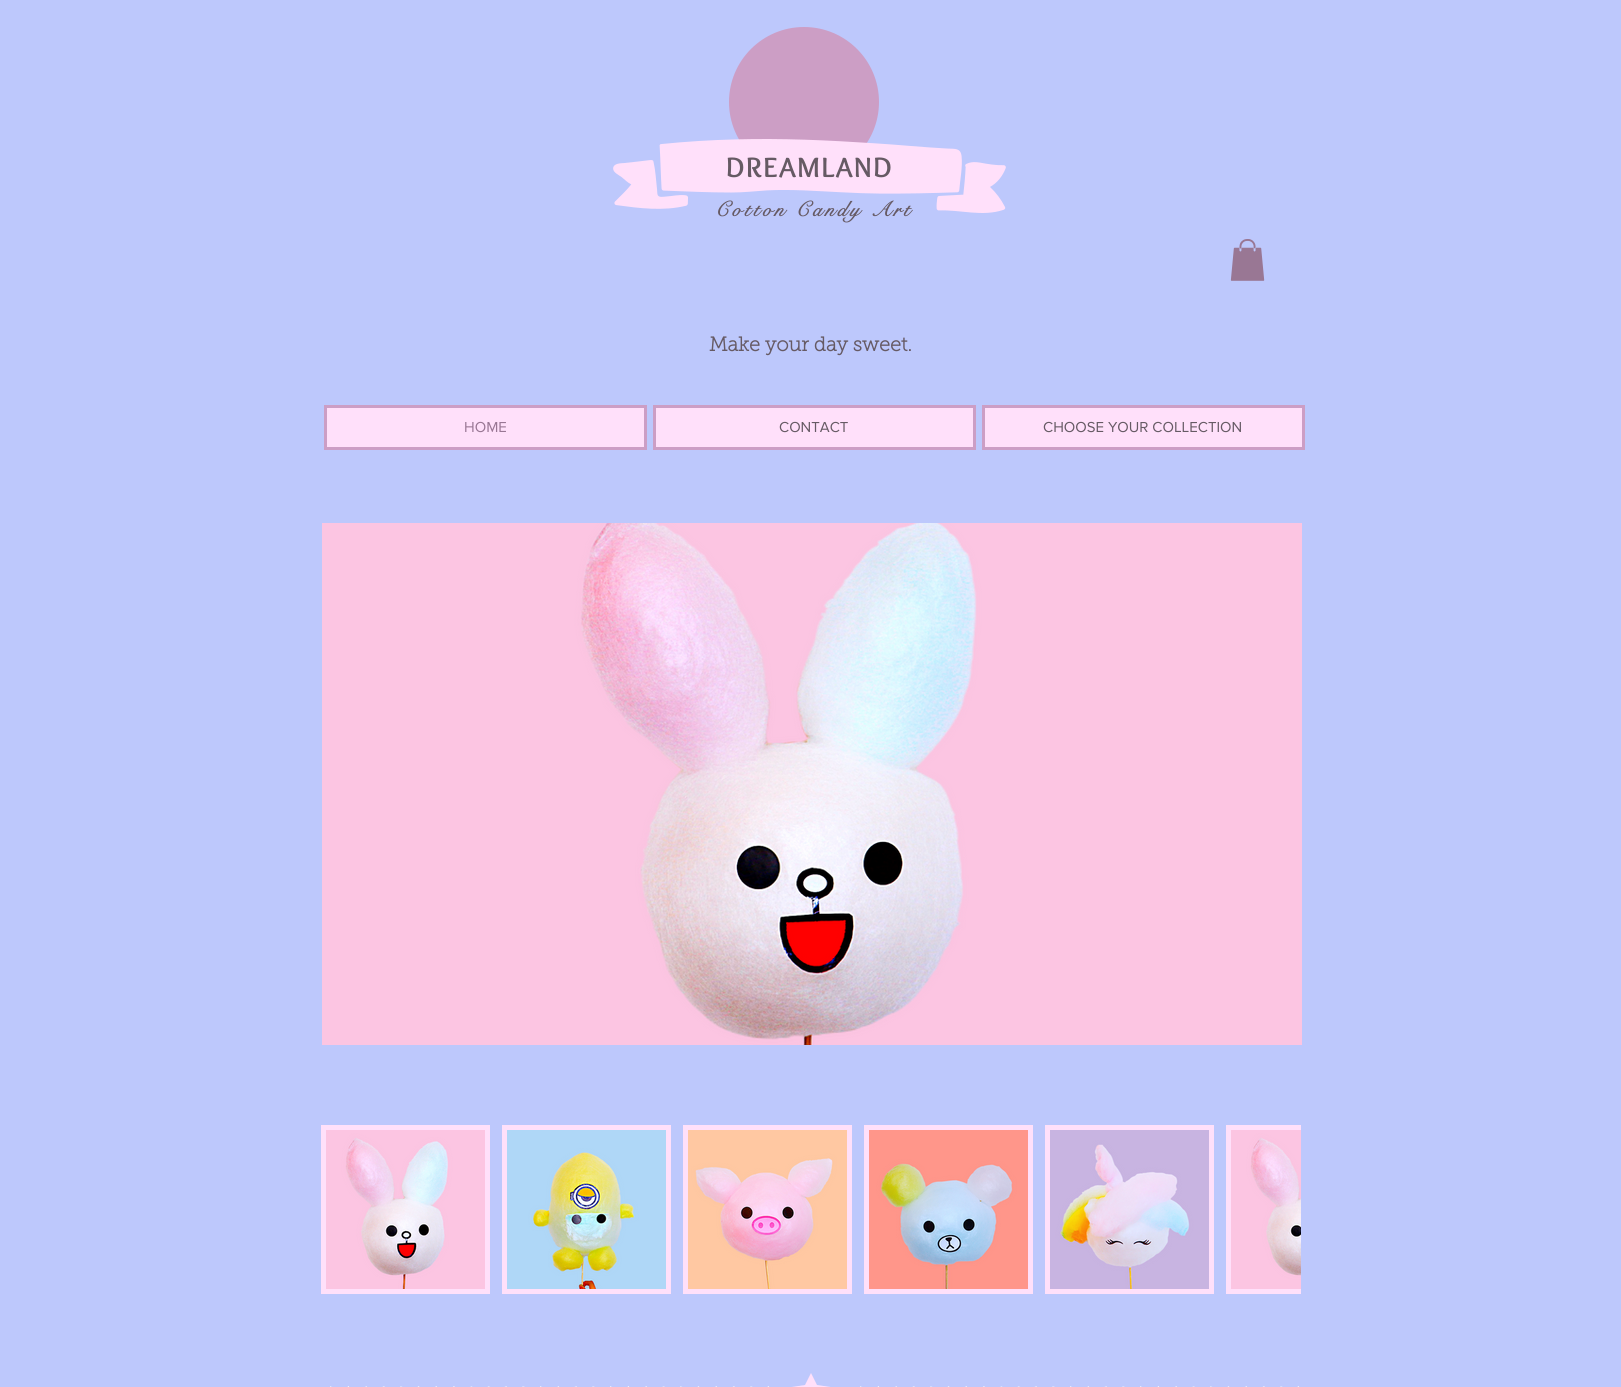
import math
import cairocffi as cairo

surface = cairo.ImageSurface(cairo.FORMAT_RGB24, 1621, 1387)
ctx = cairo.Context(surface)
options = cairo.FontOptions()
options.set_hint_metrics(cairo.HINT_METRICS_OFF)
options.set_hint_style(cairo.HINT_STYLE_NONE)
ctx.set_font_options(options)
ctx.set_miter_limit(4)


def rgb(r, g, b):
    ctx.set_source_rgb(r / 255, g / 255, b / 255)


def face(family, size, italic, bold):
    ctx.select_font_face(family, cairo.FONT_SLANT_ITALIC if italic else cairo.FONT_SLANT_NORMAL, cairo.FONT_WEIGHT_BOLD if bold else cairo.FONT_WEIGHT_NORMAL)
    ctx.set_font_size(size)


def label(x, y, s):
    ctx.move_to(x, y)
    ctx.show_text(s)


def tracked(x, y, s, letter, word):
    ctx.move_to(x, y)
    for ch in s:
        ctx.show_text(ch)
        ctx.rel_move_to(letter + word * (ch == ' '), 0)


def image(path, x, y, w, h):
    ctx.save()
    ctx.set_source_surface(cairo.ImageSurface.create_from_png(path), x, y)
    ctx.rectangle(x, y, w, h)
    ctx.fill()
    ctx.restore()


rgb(189, 200, 252)
ctx.paint()
rgb(204, 158, 197)
ctx.arc(804, 102, 75, 0, 2 * math.pi)
ctx.fill()
image('image0.png', 613, 139, 393, 74)
face('Overlock', 29, 0, 1)
rgb(102, 90, 100)
tracked(726, 177, 'DREAMLAND', 1.5, 0)
face('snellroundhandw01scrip', 21, 0, 1)
tracked(715, 216, 'Cotton Candy Art', 3.1, 0)
image('image1.png', 1230, 239, 35, 42)
face('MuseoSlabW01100', 20, 0, 1)
label(709, 351, 'Make your day sweet.')
rgb(255, 224, 250)
ctx.rectangle(325.5, 406.5, 320, 42)
ctx.fill_preserve()
rgb(204, 158, 197)
ctx.set_line_width(3)
ctx.stroke()
face('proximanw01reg', 15, 0, 0)
rgb(153, 119, 148)
label(464, 432, 'HOME')
rgb(255, 224, 250)
ctx.rectangle(654.5, 406.5, 320, 42)
ctx.fill_preserve()
rgb(204, 158, 197)
ctx.stroke()
rgb(102, 90, 100)
label(779, 432, 'CONTACT')
rgb(255, 224, 250)
ctx.rectangle(983.5, 406.5, 320, 42)
ctx.fill_preserve()
rgb(204, 158, 197)
ctx.stroke()
rgb(102, 90, 100)
label(1043, 432, 'CHOOSE YOUR COLLECTION')
image('image2.png', 322, 523, 980, 522)
ctx.rectangle(323.5, 1127.5, 164, 164)
rgb(255, 224, 250)
ctx.set_line_width(5)
ctx.stroke()
image('image3.png', 326, 1130, 159, 159)
ctx.rectangle(504.5, 1127.5, 164, 164)
ctx.stroke()
image('image4.png', 507, 1130, 159, 159)
ctx.rectangle(685.5, 1127.5, 164, 164)
ctx.stroke()
image('image5.png', 688, 1130, 159, 159)
ctx.rectangle(866.5, 1127.5, 164, 164)
ctx.stroke()
image('image6.png', 869, 1130, 159, 159)
ctx.rectangle(1047.5, 1127.5, 164, 164)
ctx.stroke()
image('image7.png', 1050, 1130, 159, 159)
ctx.save()
ctx.rectangle(321, 1125, 980, 169)
ctx.clip()
ctx.rectangle(1228.5, 1127.5, 164, 164)
ctx.stroke()
ctx.restore()
image('image8.png', 1231, 1130, 70, 159)
image('image9.png', 330, 1386, 439, 1)
ctx.new_path()
ctx.move_to(811, 1373)
ctx.line_to(817, 1385)
ctx.line_to(830.5, 1387)
ctx.line_to(820.5, 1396.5)
ctx.line_to(823, 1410)
ctx.line_to(811, 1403.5)
ctx.line_to(799, 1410)
ctx.line_to(801.5, 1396.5)
ctx.line_to(791.5, 1387)
ctx.line_to(805, 1385)
ctx.close_path()
ctx.fill()
image('image9.png', 860, 1386, 439, 1)
surface.write_to_png('render.png')
